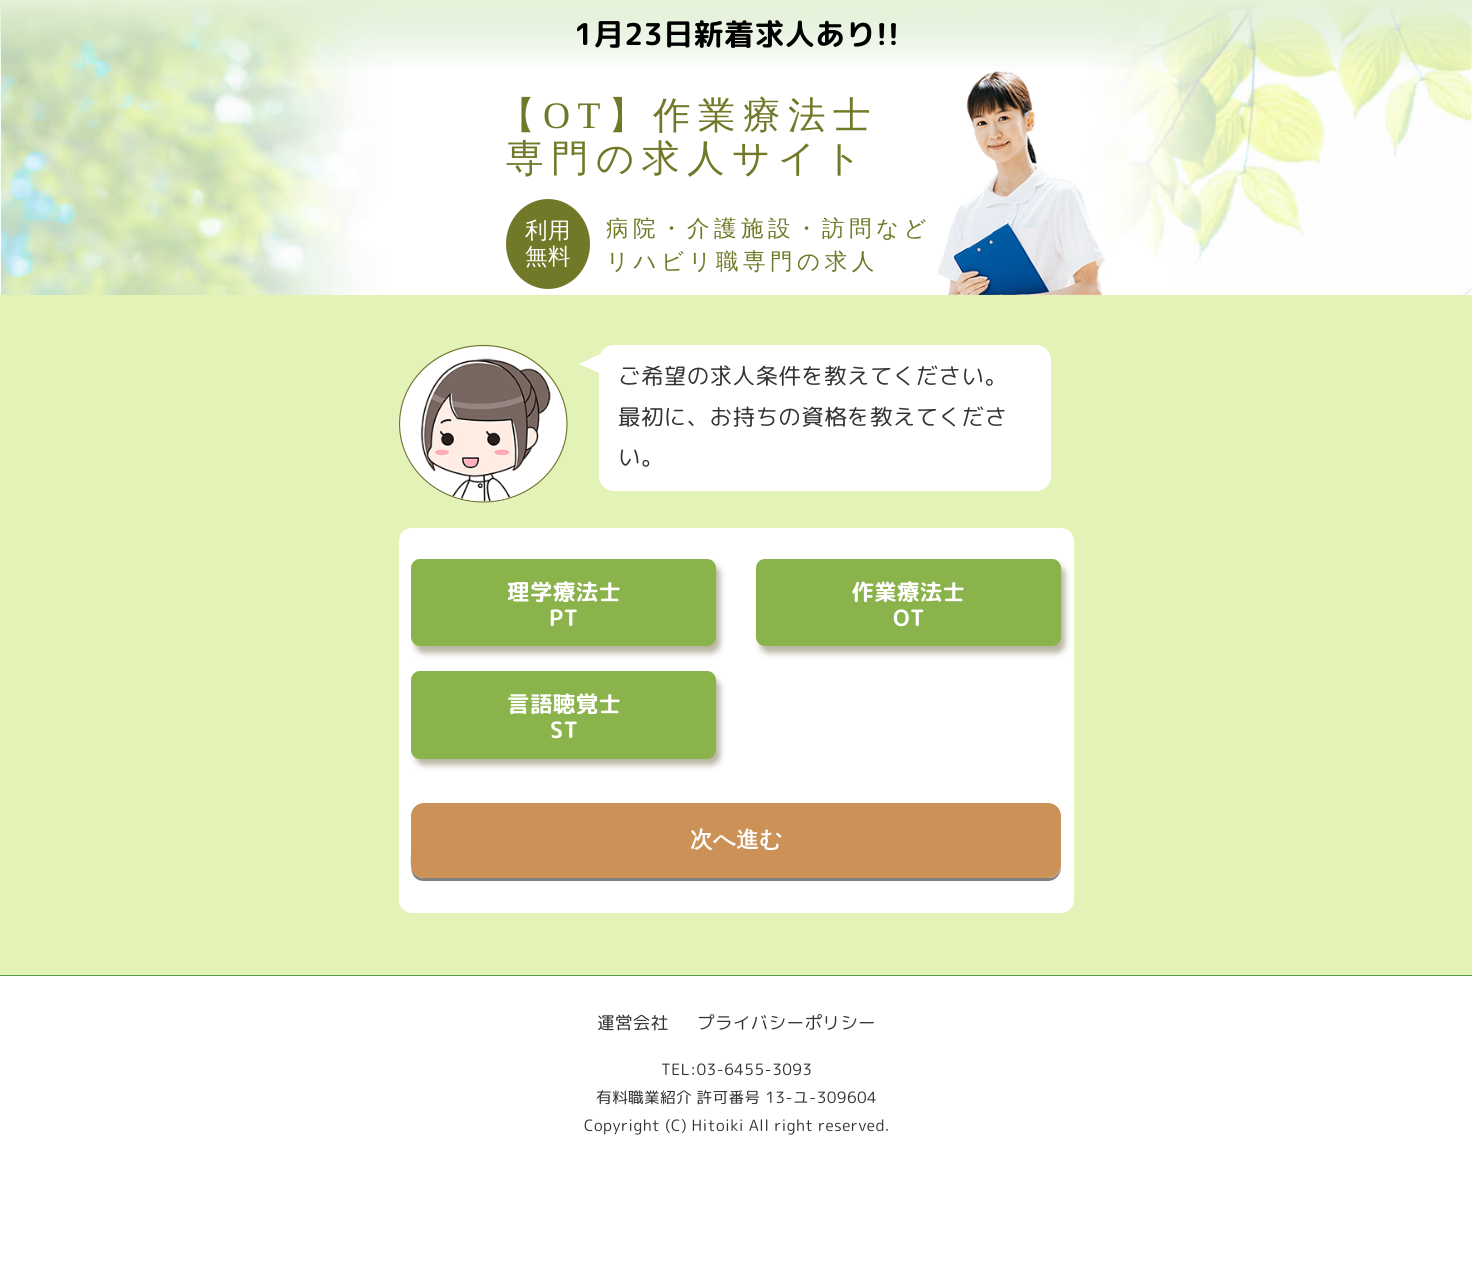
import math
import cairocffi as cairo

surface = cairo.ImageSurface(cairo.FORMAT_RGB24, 1472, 1267)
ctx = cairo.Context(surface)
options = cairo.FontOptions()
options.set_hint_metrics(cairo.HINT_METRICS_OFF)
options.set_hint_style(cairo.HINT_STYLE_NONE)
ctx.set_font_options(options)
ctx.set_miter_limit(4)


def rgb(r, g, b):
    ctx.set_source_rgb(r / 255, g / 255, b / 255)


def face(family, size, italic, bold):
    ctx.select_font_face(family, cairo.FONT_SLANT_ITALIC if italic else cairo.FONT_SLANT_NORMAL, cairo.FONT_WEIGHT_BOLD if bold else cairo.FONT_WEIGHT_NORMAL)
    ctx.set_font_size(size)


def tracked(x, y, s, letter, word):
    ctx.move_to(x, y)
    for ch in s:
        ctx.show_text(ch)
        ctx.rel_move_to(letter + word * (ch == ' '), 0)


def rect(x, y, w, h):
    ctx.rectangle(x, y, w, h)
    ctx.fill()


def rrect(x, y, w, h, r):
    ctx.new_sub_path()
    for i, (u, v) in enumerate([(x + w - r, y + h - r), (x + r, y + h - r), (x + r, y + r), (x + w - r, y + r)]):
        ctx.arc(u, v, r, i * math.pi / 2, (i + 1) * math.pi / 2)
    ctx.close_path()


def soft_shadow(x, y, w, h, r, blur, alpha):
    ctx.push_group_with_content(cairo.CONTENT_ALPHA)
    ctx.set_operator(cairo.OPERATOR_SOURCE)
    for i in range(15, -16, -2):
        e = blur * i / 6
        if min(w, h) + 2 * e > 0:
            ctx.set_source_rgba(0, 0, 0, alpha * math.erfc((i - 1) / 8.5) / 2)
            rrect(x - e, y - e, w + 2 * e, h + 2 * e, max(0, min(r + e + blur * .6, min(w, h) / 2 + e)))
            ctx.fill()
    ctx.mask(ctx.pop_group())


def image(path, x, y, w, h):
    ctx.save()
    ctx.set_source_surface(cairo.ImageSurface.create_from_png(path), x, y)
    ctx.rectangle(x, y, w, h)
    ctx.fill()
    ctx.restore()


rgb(255, 255, 255)
ctx.paint()
rgb(227, 242, 183)
rect(0, 295, 1472, 680)
image('image0.png', 0, 0, 1472, 295)
face('Rounded Mplus 1c', 30, 0, 1)
rgb(0, 0, 0)
tracked(574, 45, '1月23日新着求人あり!!', 0.4, 0)
face('WenQuanYi Zen Hei Medium', 37.5, 0, 0)
rgb(113, 120, 40)
tracked(498, 128, '【', 7.5, 0)
face('Liberation Serif', 37.5, 0, 0)
tracked(543, 128, 'OT', 7.5, 0)
face('WenQuanYi Zen Hei Medium', 37.5, 0, 0)
tracked(608, 128, '】作業療法士', 7.5, 0)
tracked(506, 171, '専門の求人サイト', 7.5, 0)
ctx.new_path()
ctx.move_to(548, 199)
ctx.curve_to(571, 199, 590, 219, 590, 244)
ctx.curve_to(590, 269, 571, 289, 548, 289)
ctx.curve_to(525, 289, 506, 269, 506, 244)
ctx.curve_to(506, 219, 525, 199, 548, 199)
ctx.close_path()
ctx.fill()
face('WenQuanYi Zen Hei Medium', 22.5, 0, 0)
rgb(255, 255, 255)
tracked(525, 238, '利用', 0.4, 0)
tracked(525, 264, '無料', 0.4, 0)
rgb(113, 120, 40)
tracked(606, 236, '病院・介護施設・訪問など', 4.5, 0)
tracked(606, 269, 'リハビリ職専門の求人', 4.5, 0)
image('image1.png', 937, 71, 169, 224)
rgb(255, 255, 255)
ctx.new_path()
ctx.move_to(483, 345)
ctx.curve_to(529.5, 345, 567.5, 380.5, 567.5, 424)
ctx.curve_to(567.5, 467.5, 529.5, 503, 483, 503)
ctx.curve_to(436.5, 503, 398.5, 467.5, 398.5, 424)
ctx.curve_to(398.5, 380.5, 436.5, 345, 483, 345)
ctx.close_path()
ctx.fill()
ctx.new_path()
ctx.move_to(483, 345.5)
ctx.curve_to(529.5, 345.5, 567, 380.5, 567, 424)
ctx.curve_to(567, 467, 529.5, 502, 483, 502)
ctx.curve_to(437, 502, 399.5, 467, 399.5, 424)
ctx.curve_to(399.5, 380.5, 437, 345.5, 483, 345.5)
ctx.close_path()
rgb(113, 120, 40)
ctx.set_line_width(1.2)
ctx.stroke()
image('image2.png', 420, 358, 131, 144)
rgb(255, 255, 255)
rrect(599, 345, 452, 146, 15)
ctx.fill()
ctx.new_path()
ctx.move_to(606, 351)
ctx.line_to(606, 376)
ctx.line_to(579, 364)
ctx.close_path()
ctx.fill()
face('Rounded Mplus 1c', 22.5, 0, 0)
rgb(51, 51, 51)
tracked(618, 384, 'ご希望の求人条件を教えてください。', 0.4, 0)
tracked(618, 425, '最初に、お持ちの資格を教えてくださ', 0.4, 0)
tracked(618, 465, 'い。', 0.4, 0)
rgb(255, 255, 255)
rrect(399, 528, 675, 385, 13)
ctx.fill()
rgb(185, 180, 162)
soft_shadow(415, 565, 305, 88, 9, 3, 1)
rgb(139, 179, 75)
rrect(411, 559, 305, 87, 9)
ctx.fill()
face('Rounded Mplus 1c', 22.5, 0, 1)
rgb(255, 255, 255)
tracked(507, 600, '理学療法士', 0.4, 0)
tracked(549, 626, 'PT', 0.4, 0)
rgb(185, 180, 162)
soft_shadow(760, 565, 305, 88, 9, 3, 1)
rgb(139, 179, 75)
rrect(756, 559, 305, 87, 9)
ctx.fill()
rgb(255, 255, 255)
tracked(851, 600, '作業療法士', 0.4, 0)
tracked(893, 626, 'OT', 0.4, 0)
rgb(185, 180, 162)
soft_shadow(415, 678, 305, 87, 9, 3, 1)
rgb(139, 179, 75)
rrect(411, 671, 305, 88, 9)
ctx.fill()
rgb(255, 255, 255)
tracked(507, 712, '言語聴覚士', 0.4, 0)
tracked(550, 738, 'ST', 0.4, 0)
rgb(128, 128, 128)
ctx.new_path()
ctx.move_to(411, 816)
ctx.line_to(411, 852)
ctx.curve_to(411, 862, 408, 881, 424, 881)
ctx.line_to(1048, 881)
ctx.curve_to(1055, 881, 1061, 875, 1061, 867)
ctx.curve_to(1060, 873, 1055, 878, 1049, 878)
ctx.line_to(424, 878)
ctx.curve_to(417, 878, 411, 872, 411, 865)
ctx.close_path()
ctx.fill()
rgb(204, 145, 86)
rrect(411, 803, 650, 75, 13)
ctx.fill()
face('WenQuanYi Zen Hei', 22.5, 0, 1)
rgb(255, 255, 255)
tracked(690, 847, '次へ進む', 0.4, 0)
rgb(91, 150, 68)
rect(0, 975, 1472, 1)
face('Rounded Mplus 1c', 17.5, 0, 0)
rgb(51, 51, 51)
tracked(597, 1029, '運営会社', 0.4, 0)
tracked(697, 1029, 'プライバシーポリシー', 0.4, 0)
face('Rounded Mplus 1c', 15.6, 0, 0)
tracked(661, 1075, 'TEL:03-6455-3093', 0.4, 0)
tracked(596, 1103, '有料職業紹介 許可番号 13-ユ-309604', 0.4, 0)
tracked(584, 1131, 'Copyright (C) Hitoiki All right reserved.', 0.4, 0)
surface.write_to_png('render.png')
